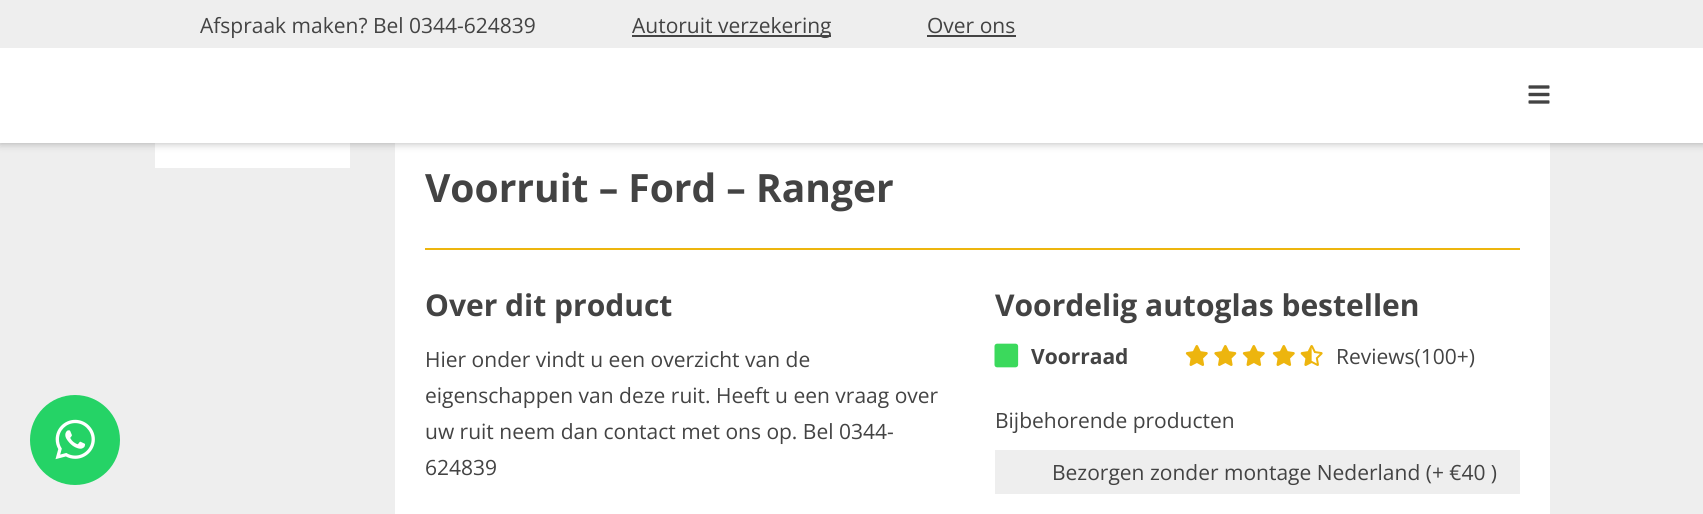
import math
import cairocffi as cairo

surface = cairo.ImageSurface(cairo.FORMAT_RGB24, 1703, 514)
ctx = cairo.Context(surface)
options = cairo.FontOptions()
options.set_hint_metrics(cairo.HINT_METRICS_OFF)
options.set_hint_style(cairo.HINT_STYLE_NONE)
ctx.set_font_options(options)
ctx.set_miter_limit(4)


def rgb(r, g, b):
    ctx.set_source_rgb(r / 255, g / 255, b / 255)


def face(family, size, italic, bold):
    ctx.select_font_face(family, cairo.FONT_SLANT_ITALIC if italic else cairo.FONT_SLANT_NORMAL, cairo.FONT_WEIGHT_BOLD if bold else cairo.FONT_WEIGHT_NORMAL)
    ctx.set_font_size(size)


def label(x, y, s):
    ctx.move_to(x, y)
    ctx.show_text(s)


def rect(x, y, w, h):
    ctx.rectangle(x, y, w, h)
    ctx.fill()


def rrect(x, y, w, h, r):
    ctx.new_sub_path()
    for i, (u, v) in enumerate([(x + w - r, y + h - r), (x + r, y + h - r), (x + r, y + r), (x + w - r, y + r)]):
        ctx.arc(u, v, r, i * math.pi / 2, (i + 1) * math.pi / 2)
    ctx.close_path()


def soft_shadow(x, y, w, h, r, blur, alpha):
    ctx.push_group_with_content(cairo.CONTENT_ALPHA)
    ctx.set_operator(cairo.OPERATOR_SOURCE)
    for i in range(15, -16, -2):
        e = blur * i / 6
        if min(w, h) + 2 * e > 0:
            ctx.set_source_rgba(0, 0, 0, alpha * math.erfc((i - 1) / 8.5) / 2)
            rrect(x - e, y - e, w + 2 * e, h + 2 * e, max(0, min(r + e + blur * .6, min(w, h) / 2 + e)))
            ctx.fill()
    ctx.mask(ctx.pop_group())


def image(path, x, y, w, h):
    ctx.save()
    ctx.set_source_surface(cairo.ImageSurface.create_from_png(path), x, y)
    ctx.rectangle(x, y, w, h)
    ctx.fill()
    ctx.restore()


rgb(238, 238, 238)
ctx.paint()
rgb(255, 255, 255)
rect(155, 143, 195, 25)
rect(395, 143, 1155, 371)
rgb(0, 0, 0)
soft_shadow(0, 0, 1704, 143, 0, 4.5, 0.3)
rgb(238, 238, 238)
rect(0, 0, 1703, 48)
face('Open Sans', 21, 0, 0)
rgb(67, 67, 67)
label(200, 33, 'Afspraak maken? Bel')
label(409, 33, '0344-624839')
rgb(68, 68, 68)
rect(632, 35, 199, 2)
rgb(67, 67, 67)
label(632, 33, 'Autoruit verzekering')
label(927, 33, 'Over ons')
rgb(68, 68, 68)
rect(927, 35, 89, 2)
rgb(255, 255, 255)
rect(0, 48, 1703, 95)
image('image0.png', 1528, 85, 22, 19)
rgb(37, 211, 102)
ctx.arc(75, 440, 45, 0, 2 * math.pi)
ctx.fill()
image('image1.png', 55, 419, 40, 41)
face('Open Sans', 39, 0, 1)
rgb(67, 67, 67)
label(425, 202, 'Voorruit – Ford – Ranger')
rgb(237, 181, 14)
rect(425, 248, 1095, 2)
face('Open Sans', 30, 0, 1)
rgb(67, 67, 67)
label(425, 316, 'Over dit product')
face('Open Sans', 21, 0, 0)
label(425, 367, 'Hier onder vindt u een overzicht van de')
label(425, 403, 'eigenschappen van deze ruit. Heeft u een vraag over')
label(425, 439, 'uw ruit neem dan contact met ons op. Bel 0344-')
label(425, 475, '624839')
face('Open Sans', 30, 0, 1)
label(995, 316, 'Voordelig autoglas bestellen')
image('image2.png', 994, 343, 25, 25)
face('Open Sans', 21, 0, 1)
label(1031, 364, 'Voorraad')
image('image3.png', 1185, 345, 23, 21)
image('image4.png', 1214, 345, 23, 21)
image('image3.png', 1242, 345, 23, 21)
image('image3.png', 1272, 345, 23, 21)
image('image5.png', 1300, 345, 23, 21)
face('Open Sans', 21, 0, 0)
label(1336, 364, 'Reviews(100+)')
label(995, 428, 'Bijbehorende producten')
rgb(238, 238, 238)
rect(995, 450, 525, 44)
rgb(67, 67, 67)
label(1052, 480, 'Bezorgen zonder montage Nederland (+ €40 )')
surface.write_to_png('render.png')
